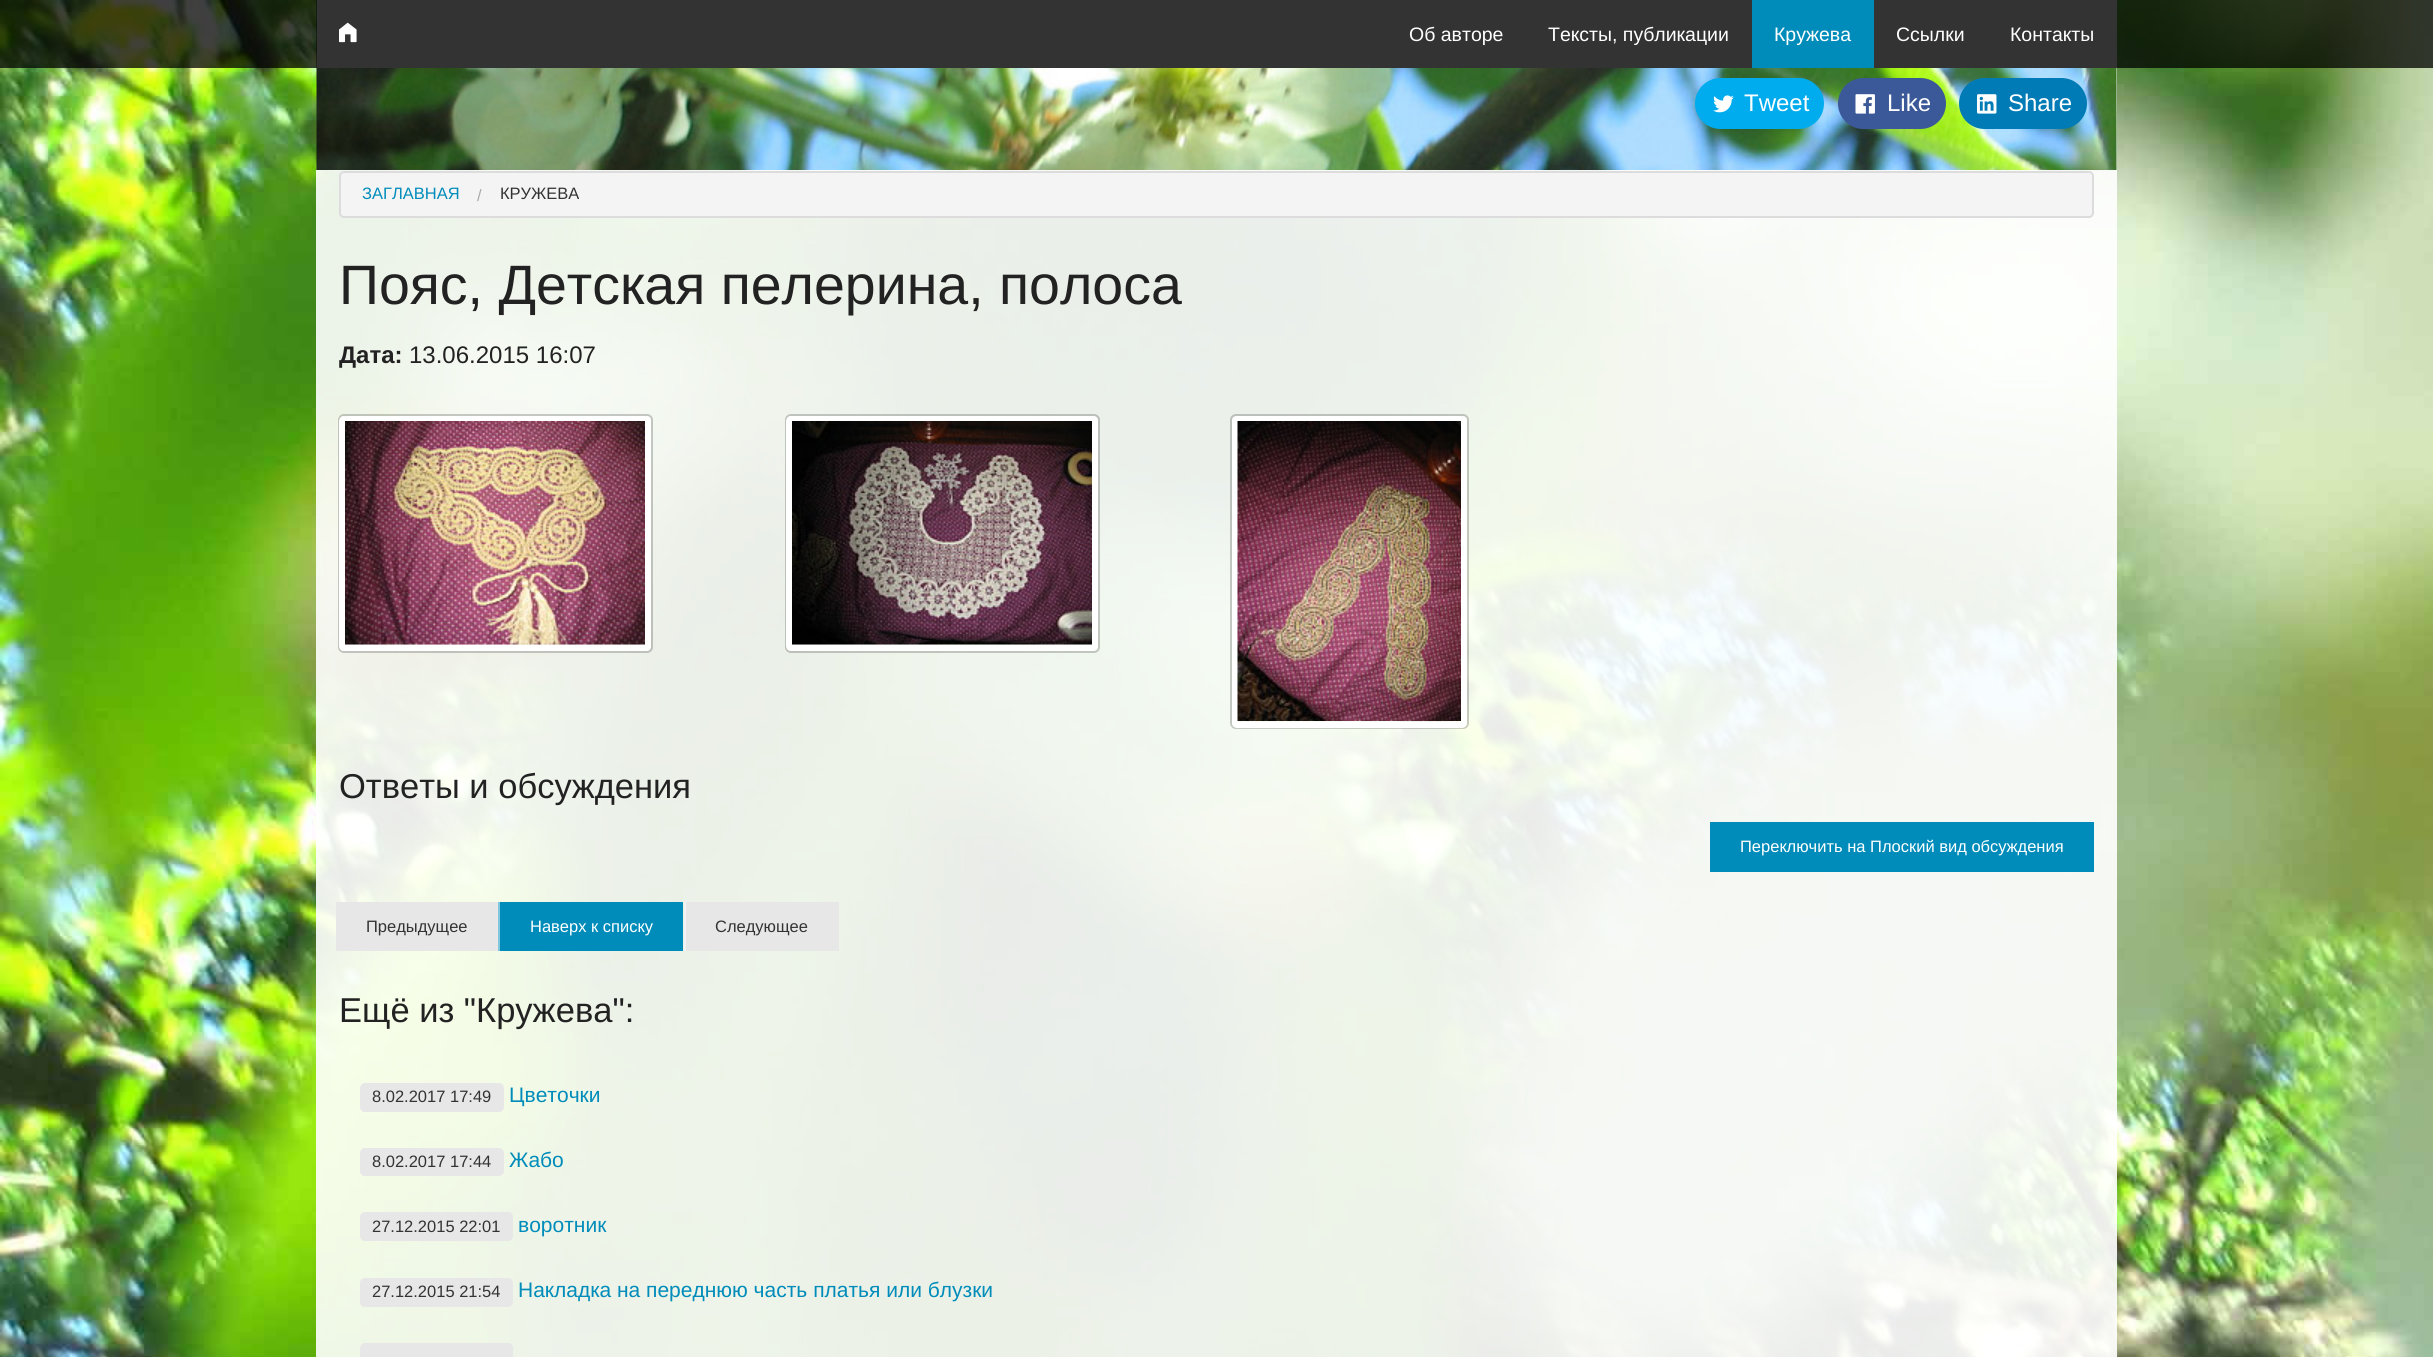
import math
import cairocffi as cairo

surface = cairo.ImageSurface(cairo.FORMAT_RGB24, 2433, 1357)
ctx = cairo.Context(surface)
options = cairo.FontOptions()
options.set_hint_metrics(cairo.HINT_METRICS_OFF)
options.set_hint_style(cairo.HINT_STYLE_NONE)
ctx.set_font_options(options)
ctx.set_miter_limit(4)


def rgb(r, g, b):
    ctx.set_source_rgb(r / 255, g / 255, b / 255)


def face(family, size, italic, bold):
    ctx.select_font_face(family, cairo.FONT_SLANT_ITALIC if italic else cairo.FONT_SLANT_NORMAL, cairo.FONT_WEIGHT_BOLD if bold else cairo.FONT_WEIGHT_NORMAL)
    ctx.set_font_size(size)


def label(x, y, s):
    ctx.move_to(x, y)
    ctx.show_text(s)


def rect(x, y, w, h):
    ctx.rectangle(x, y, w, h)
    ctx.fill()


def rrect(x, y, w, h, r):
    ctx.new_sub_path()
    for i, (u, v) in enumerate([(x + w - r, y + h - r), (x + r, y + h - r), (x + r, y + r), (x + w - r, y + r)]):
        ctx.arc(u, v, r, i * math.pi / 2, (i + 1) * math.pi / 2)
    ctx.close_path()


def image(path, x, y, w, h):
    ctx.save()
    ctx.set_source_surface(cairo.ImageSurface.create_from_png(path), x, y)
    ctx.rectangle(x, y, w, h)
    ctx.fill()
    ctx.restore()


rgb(255, 255, 255)
ctx.paint()
image('image0.png', 0, 0, 2433, 1357)
rgb(242, 242, 242)
rect(317, 68, 1800, 103)
image('image2.png', 316, 0, 1801, 171)
ctx.set_source_rgba(0, 0, 0, 0.75)
rect(0, 0, 2433, 68)
rgb(51, 51, 51)
rect(317, 0, 1800, 68)
image('image1.png', 339, 22, 18, 21)
face('Liberation Sans', 19.5, 0, 0)
rgb(255, 255, 255)
label(1409, 41, 'Об авторе')
label(1548, 41, 'Тексты, публикации')
rgb(0, 140, 186)
rect(1752, 0, 122, 68)
rgb(255, 255, 255)
label(1774, 41, 'Кружева')
label(1896, 41, 'Ссылки')
label(2010, 41, 'Контакты')
rgb(0, 172, 237)
rrect(1695, 78, 129, 51, 25.5)
ctx.fill()
image('image3.png', 1713, 95, 21, 18)
face('Liberation Sans', 24, 0, 0)
rgb(255, 255, 255)
label(1744, 111, 'Tweet')
rgb(59, 89, 152)
rrect(1838, 78, 108, 51, 25.5)
ctx.fill()
image('image4.png', 1855, 94, 20, 20)
rgb(255, 255, 255)
label(1887, 111, 'Like')
rgb(0, 123, 182)
rrect(1959, 78, 128, 51, 25.5)
ctx.fill()
image('image5.png', 1977, 94, 20, 20)
rgb(255, 255, 255)
label(2008, 111, 'Share')
ctx.set_source_rgba(1, 1, 1, 0.9)
rect(316, 170, 1801, 1187)
rgb(244, 244, 244)
rrect(340, 172, 1753, 45, 4)
ctx.fill_preserve()
rgb(220, 220, 220)
ctx.stroke()
face('Liberation Sans', 16.5, 0, 0)
rgb(0, 140, 186)
label(362, 199, 'ЗАГЛАВНАЯ')
rgb(170, 170, 170)
label(477, 201, '/')
rgb(51, 51, 51)
label(500, 199, 'КРУЖЕВА')
face('Liberation Sans', 55.5, 0, 0)
rgb(34, 34, 34)
label(339, 304, 'Пояс, Детская пелерина, полоса')
face('Liberation Sans', 24, 0, 1)
label(339, 363, 'Дата:')
face('Liberation Sans', 24, 0, 0)
label(409, 363, '13.06.2015 16:07')
rrect(339, 415, 313, 237, 5)
ctx.set_source_rgba(0, 0, 0, 0.2)
ctx.stroke()
rrect(342, 419, 306, 229, 2)
rgb(255, 255, 255)
ctx.set_line_width(6)
ctx.stroke()
image('image6.png', 345, 421, 300, 224)
rrect(786, 415, 313, 237, 5)
ctx.set_source_rgba(0, 0, 0, 0.2)
ctx.set_line_width(2)
ctx.stroke()
rrect(789, 419, 306, 229, 2)
rgb(255, 255, 255)
ctx.set_line_width(6)
ctx.stroke()
image('image7.png', 792, 421, 300, 224)
rrect(1231, 415, 237, 313, 5)
ctx.set_source_rgba(0, 0, 0, 0.2)
ctx.set_line_width(2)
ctx.stroke()
rrect(1235, 419, 229, 306, 2)
rgb(255, 255, 255)
ctx.set_line_width(6)
ctx.stroke()
image('image8.png', 1237, 421, 224, 300)
face('Liberation Sans', 34.5, 0, 0)
rgb(34, 34, 34)
label(339, 798, 'Ответы и обсуждения')
rgb(0, 140, 186)
rect(1710, 822, 384, 50)
face('Liberation Sans', 16.5, 0, 0)
rgb(255, 255, 255)
label(1740, 852, 'Переключить на Плоский вид обсуждения')
rgb(231, 231, 231)
rect(336, 902, 162, 49)
rgb(51, 51, 51)
label(366, 932, 'Предыдущее')
rgb(0, 140, 186)
rect(500, 902, 183, 49)
rgb(128, 198, 221)
rect(498, 902, 2, 49)
rgb(255, 255, 255)
label(530, 932, 'Наверх к списку')
rgb(231, 231, 231)
rect(686, 902, 153, 49)
rgb(243, 243, 243)
rect(684, 902, 2, 49)
rgb(51, 51, 51)
label(715, 932, 'Следующее')
face('Liberation Sans', 34.5, 0, 0)
rgb(34, 34, 34)
label(339, 1022, 'Ещё из "Кружева":')
rgb(231, 231, 231)
rrect(360, 1083, 144, 29, 5)
ctx.fill()
face('Liberation Sans', 16.5, 0, 0)
rgb(51, 51, 51)
label(372, 1102, '8.02.2017 17:49')
face('Liberation Sans', 21, 0, 0)
rgb(0, 140, 186)
label(509, 1102, 'Цветочки')
rgb(231, 231, 231)
rrect(360, 1148, 144, 28, 5)
ctx.fill()
face('Liberation Sans', 16.5, 0, 0)
rgb(51, 51, 51)
label(372, 1167, '8.02.2017 17:44')
face('Liberation Sans', 21, 0, 0)
rgb(0, 140, 186)
label(509, 1167, 'Жабо')
rgb(231, 231, 231)
rrect(360, 1212, 153, 29, 5)
ctx.fill()
face('Liberation Sans', 16.5, 0, 0)
rgb(51, 51, 51)
label(372, 1232, '27.12.2015 22:01')
face('Liberation Sans', 21, 0, 0)
rgb(0, 140, 186)
label(518, 1232, 'воротник')
rgb(231, 231, 231)
rrect(360, 1278, 153, 29, 5)
ctx.fill()
face('Liberation Sans', 16.5, 0, 0)
rgb(51, 51, 51)
label(372, 1297, '27.12.2015 21:54')
face('Liberation Sans', 21, 0, 0)
rgb(0, 140, 186)
label(518, 1297, 'Накладка на переднюю часть платья или блузки')
rgb(231, 231, 231)
rrect(360, 1343, 153, 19, 5)
ctx.fill()
surface.write_to_png('render.png')
